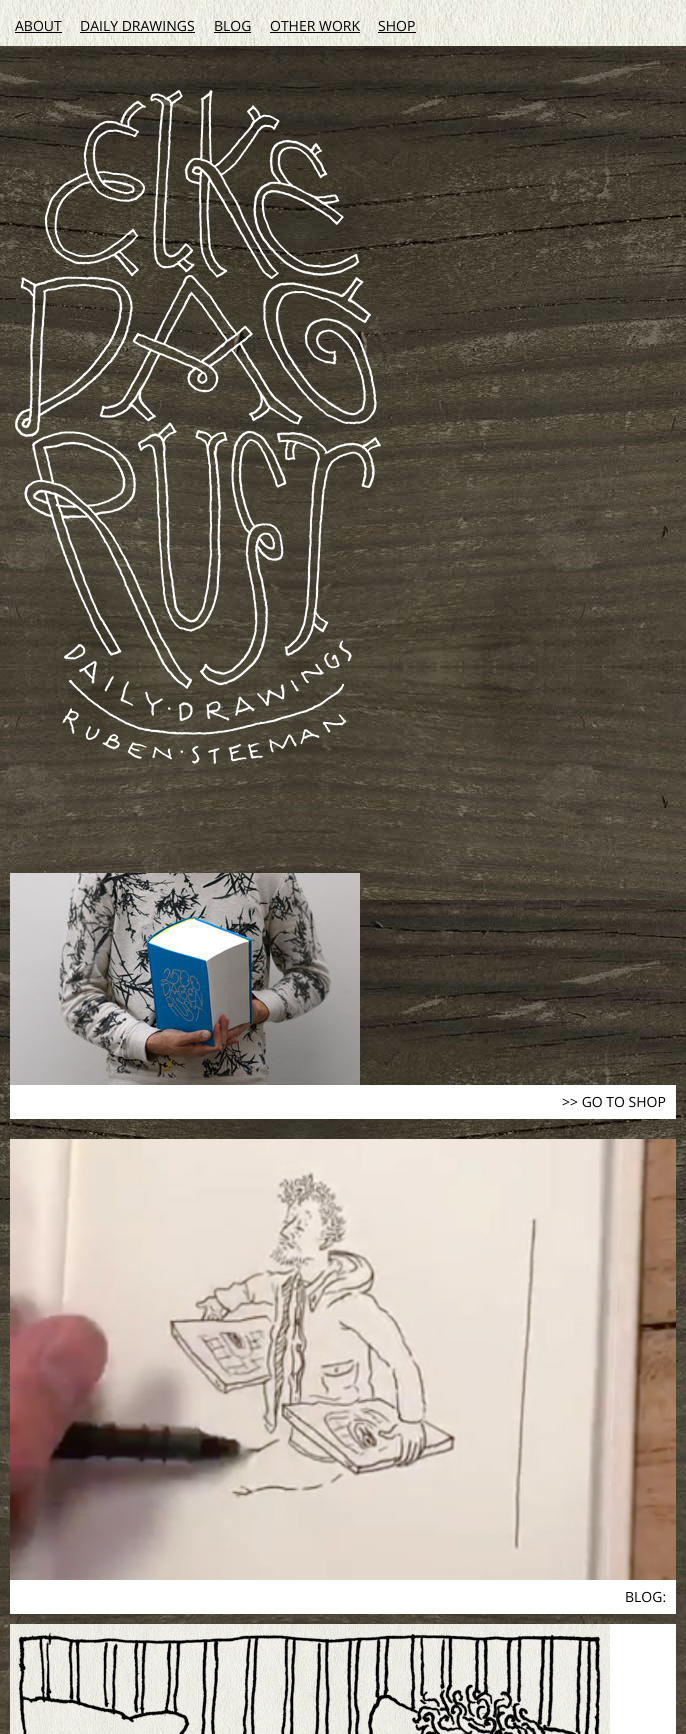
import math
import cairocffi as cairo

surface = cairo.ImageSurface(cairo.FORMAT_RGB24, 686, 1734)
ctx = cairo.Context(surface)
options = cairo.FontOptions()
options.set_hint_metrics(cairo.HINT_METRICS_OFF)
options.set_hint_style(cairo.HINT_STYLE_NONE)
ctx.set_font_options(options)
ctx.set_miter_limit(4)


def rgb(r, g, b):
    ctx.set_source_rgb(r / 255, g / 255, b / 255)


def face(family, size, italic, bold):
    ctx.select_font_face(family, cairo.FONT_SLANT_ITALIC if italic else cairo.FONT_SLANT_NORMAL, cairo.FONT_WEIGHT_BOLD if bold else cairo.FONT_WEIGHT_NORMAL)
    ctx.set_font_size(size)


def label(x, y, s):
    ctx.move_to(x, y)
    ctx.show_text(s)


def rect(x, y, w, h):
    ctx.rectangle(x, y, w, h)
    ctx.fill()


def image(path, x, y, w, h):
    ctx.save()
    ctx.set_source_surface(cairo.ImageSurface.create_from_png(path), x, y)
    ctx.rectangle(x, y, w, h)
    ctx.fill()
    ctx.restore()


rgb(255, 255, 255)
ctx.paint()
image('image0.png', 0, 46, 686, 1688)
image('image1.png', 0, 0, 686, 46)
face('Open Sans', 14, 0, 0)
rgb(0, 0, 0)
label(15, 31, 'ABOUT')
rect(15, 32, 47, 1)
label(80, 31, 'DAILY DRAWINGS')
rect(80, 32, 115, 1)
label(214, 31, 'BLOG')
rect(214, 32, 37, 1)
label(270, 31, 'OTHER WORK')
rect(270, 32, 90, 1)
label(378, 31, 'SHOP')
rect(378, 32, 38, 1)
image('image2.png', 15, 90, 374, 674)
image('image3.png', 10, 873, 350, 212)
rgb(255, 255, 255)
rect(10, 1085, 666, 34)
rgb(0, 0, 0)
label(562, 1107, '>> GO TO SHOP')
image('image4.png', 10, 1139, 666, 441)
rgb(255, 255, 255)
rect(10, 1580, 666, 34)
rgb(0, 0, 0)
label(625, 1602, 'BLOG:')
rgb(255, 255, 255)
rect(610, 1624, 66, 110)
image('image5.png', 10, 1624, 600, 110)
surface.write_to_png('render.png')
